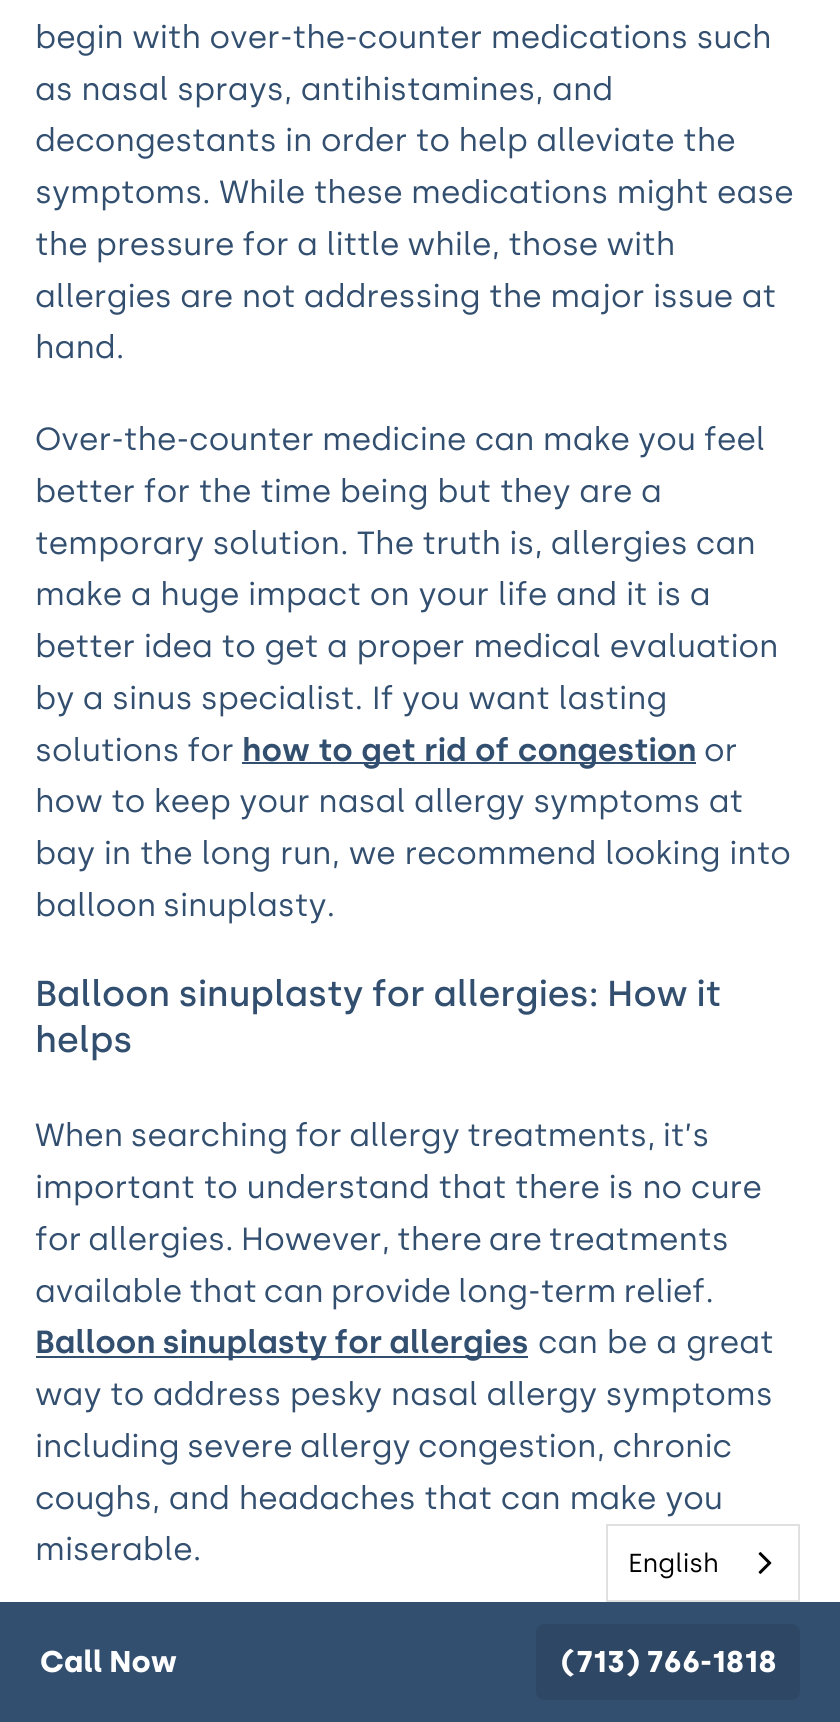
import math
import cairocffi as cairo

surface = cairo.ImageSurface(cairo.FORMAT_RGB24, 840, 1722)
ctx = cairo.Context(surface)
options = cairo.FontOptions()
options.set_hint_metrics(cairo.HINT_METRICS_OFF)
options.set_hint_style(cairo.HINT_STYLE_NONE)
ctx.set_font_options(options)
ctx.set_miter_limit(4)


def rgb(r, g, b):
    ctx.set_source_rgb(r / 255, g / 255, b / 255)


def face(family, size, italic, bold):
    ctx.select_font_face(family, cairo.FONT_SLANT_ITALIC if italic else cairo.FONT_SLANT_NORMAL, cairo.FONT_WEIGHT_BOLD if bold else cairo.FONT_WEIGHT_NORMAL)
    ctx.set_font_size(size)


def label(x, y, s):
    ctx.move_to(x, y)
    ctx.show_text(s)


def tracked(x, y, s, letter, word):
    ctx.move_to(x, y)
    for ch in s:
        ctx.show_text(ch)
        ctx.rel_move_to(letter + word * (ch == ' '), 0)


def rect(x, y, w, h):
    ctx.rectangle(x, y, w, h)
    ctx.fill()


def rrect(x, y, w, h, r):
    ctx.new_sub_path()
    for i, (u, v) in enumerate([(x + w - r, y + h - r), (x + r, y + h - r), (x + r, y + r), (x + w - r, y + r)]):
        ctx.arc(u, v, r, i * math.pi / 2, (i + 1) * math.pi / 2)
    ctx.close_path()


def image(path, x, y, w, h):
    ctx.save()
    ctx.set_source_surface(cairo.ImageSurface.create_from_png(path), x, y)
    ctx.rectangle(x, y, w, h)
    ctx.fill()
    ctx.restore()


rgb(255, 255, 255)
ctx.paint()
face('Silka', 32, 0, 0)
rgb(51, 79, 112)
tracked(35, 48, 'begin with over-the-counter medications such', 0, -0.5)
tracked(35, 100, 'as nasal sprays, antihistamines, and', 0, -0.5)
tracked(35, 151, 'decongestants in order to help alleviate the', 0, -0.5)
tracked(35, 203, 'symptoms. While these medications might ease', 0, -0.5)
tracked(35, 255, 'the pressure for a little while, those with', 0, -0.75)
tracked(35, 307, 'allergies are not addressing the major issue at', 0, -0.5)
label(35, 358, 'hand.')
tracked(35, 450, 'Over-the-counter medicine can make you feel', 0, -0.75)
tracked(35, 502, 'better for the time being but they are a', 0, -0.25)
tracked(35, 554, 'temporary solution. The truth is, allergies can', 0, -0.75)
tracked(35, 605, 'make a huge impact on your life and it is a', 0, -0.25)
tracked(35, 657, 'better idea to get a proper medical evaluation', 0, -0.25)
tracked(35, 709, 'by a sinus specialist. If you want lasting', 0, -0.5)
tracked(35, 761, 'solutions for', 0, -1)
rect(242, 762, 454, 2)
face('Silka SemiBold', 32, 0, 0)
label(242, 761, 'how to get rid of congestion')
face('Silka', 32, 0, 0)
label(704, 761, 'or')
tracked(35, 812, 'how to keep your nasal allergy symptoms at', 0, -0.5)
tracked(35, 864, 'bay in the long run, we recommend looking into', 0, -0.25)
tracked(35, 916, 'balloon sinuplasty.', 0, -2)
face('Silka Medium', 36, 0, 0)
tracked(35, 1006, 'Balloon sinuplasty for allergies: How it', 0, -1.25)
label(35, 1052, 'helps')
face('Silka', 32, 0, 0)
tracked(35, 1146, 'When searching for allergy treatments, it’s', 0, -1.5)
tracked(35, 1198, 'important to understand that there is no cure', 0, -0.25)
tracked(35, 1250, 'for allergies. However, there are treatments', 0, -2)
tracked(35, 1302, 'available that can provide long-term relief.', 0, -2)
rect(36, 1356, 492, 2)
face('Silka SemiBold', 32, 0, 0)
tracked(35, 1353, 'Balloon sinuplasty for allergies', 0, -1.5)
face('Silka', 32, 0, 0)
label(538, 1353, 'can be a great')
tracked(35, 1405, 'way to address pesky nasal allergy symptoms', 0, -0.5)
tracked(35, 1457, 'including severe allergy congestion, chronic', 0, -1.5)
tracked(35, 1509, 'coughs, and headaches that can make you', 0, -0.25)
label(35, 1560, 'miserable.')
rect(0, 1602, 840, 120)
face('Silka', 30, 0, 1)
rgb(255, 255, 255)
tracked(40, 1672, 'Call Now', 0, -1)
rgb(46, 71, 101)
rrect(536, 1624, 264, 76, 8)
ctx.fill()
rgb(255, 255, 255)
tracked(561, 1672, '(713) 766-1818', 0, -1)
ctx.rectangle(607, 1525, 192, 76)
rgb(224, 224, 224)
ctx.stroke()
face('Silka', 26, 0, 0)
rgb(0, 0, 0)
label(628, 1572, 'English')
image('image0.png', 758, 1552, 14, 22)
surface.write_to_png('render.png')
